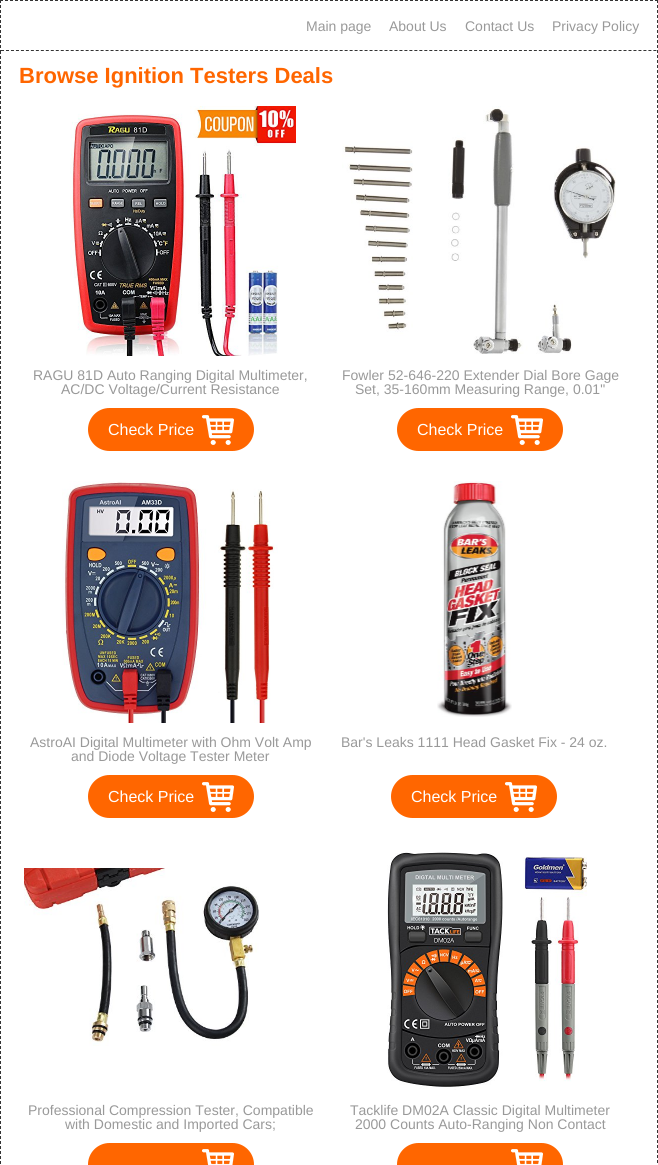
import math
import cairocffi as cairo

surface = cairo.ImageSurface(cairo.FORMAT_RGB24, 658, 1165)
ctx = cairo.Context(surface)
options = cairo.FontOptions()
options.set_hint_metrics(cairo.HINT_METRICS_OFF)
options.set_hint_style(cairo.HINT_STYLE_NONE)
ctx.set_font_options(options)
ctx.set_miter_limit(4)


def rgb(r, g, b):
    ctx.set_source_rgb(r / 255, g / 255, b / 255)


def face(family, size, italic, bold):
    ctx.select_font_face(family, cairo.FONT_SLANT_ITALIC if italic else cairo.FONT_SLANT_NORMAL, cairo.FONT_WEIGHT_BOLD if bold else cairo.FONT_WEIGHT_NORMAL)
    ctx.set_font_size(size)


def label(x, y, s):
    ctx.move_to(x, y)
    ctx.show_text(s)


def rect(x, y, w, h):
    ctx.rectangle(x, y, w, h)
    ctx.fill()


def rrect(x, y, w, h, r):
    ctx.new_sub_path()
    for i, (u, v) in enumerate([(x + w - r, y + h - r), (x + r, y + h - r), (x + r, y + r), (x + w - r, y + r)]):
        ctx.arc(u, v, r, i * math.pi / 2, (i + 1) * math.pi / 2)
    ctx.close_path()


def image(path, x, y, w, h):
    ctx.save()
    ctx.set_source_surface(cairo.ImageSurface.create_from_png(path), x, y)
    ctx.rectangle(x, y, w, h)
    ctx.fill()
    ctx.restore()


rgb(255, 255, 255)
ctx.paint()
ctx.new_path()
ctx.move_to(0, 0.5)
ctx.line_to(658, 0.5)
rgb(51, 51, 51)
ctx.set_line_width(1)
ctx.set_dash([3, 2])
ctx.stroke()
ctx.new_path()
ctx.move_to(657.5, 0)
ctx.line_to(657.5, 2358)
ctx.stroke()
ctx.new_path()
ctx.move_to(0.5, 0)
ctx.line_to(0.5, 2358)
ctx.stroke()
ctx.new_path()
ctx.move_to(1, 50.5)
ctx.line_to(657, 50.5)
ctx.set_dash([3, 1.98])
ctx.stroke()
face('Liberation Sans', 14, 0, 0)
rgb(153, 153, 153)
label(306, 31, 'Main page')
label(389, 31, 'About Us')
label(465, 31, 'Contact Us')
label(552, 31, 'Privacy Policy')
rgb(255, 255, 255)
rect(0, 51, 1, 1112)
ctx.new_path()
ctx.move_to(0.5, 51)
ctx.line_to(0.5, 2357)
rgb(51, 51, 51)
ctx.set_dash([3, 2])
ctx.stroke()
face('Liberation Sans', 22, 0, 1)
rgb(255, 102, 0)
label(19, 83, 'Browse Ignition Testers Deals')
image('image0.png', 70, 106, 226, 250)
face('Liberation Sans', 14, 0, 0)
rgb(153, 153, 153)
label(33, 380, 'RAGU 81D Auto Ranging Digital Multimeter,')
label(61, 394, 'AC/DC Voltage/Current Resistance')
rgb(255, 102, 0)
rrect(88, 408, 166, 43, 21.5)
ctx.fill()
image('image1.png', 202, 415, 32, 30)
face('Liberation Sans', 16, 0, 0)
rgb(255, 255, 255)
label(108, 435, 'Check Price')
image('image2.png', 342, 106, 274, 248)
face('Liberation Sans', 14, 0, 0)
rgb(153, 153, 153)
label(342, 380, 'Fowler 52-646-220 Extender Dial Bore Gage')
label(355, 394, 'Set, 35-160mm Measuring Range, 0.01"')
rgb(255, 102, 0)
rrect(397, 408, 166, 43, 21.5)
ctx.fill()
image('image1.png', 511, 415, 32, 30)
face('Liberation Sans', 16, 0, 0)
rgb(255, 255, 255)
label(417, 435, 'Check Price')
image('image3.png', 62, 481, 216, 242)
face('Liberation Sans', 14, 0, 0)
rgb(153, 153, 153)
label(30, 747, 'AstroAI Digital Multimeter with Ohm Volt Amp')
label(71, 761, 'and Diode Voltage Tester Meter')
rgb(255, 102, 0)
rrect(88, 775, 166, 43, 21.5)
ctx.fill()
image('image1.png', 202, 782, 32, 30)
face('Liberation Sans', 16, 0, 0)
rgb(255, 255, 255)
label(108, 802, 'Check Price')
image('image4.png', 437, 481, 75, 236)
face('Liberation Sans', 14, 0, 0)
rgb(153, 153, 153)
label(341, 747, 'Bar\'s Leaks 1111 Head Gasket Fix - 24 oz.')
rgb(255, 102, 0)
rrect(391, 775, 166, 43, 21.5)
ctx.fill()
image('image1.png', 505, 782, 32, 30)
face('Liberation Sans', 16, 0, 0)
rgb(255, 255, 255)
label(411, 802, 'Check Price')
image('image5.png', 24, 868, 235, 178)
face('Liberation Sans', 14, 0, 0)
rgb(153, 153, 153)
label(28, 1115, 'Professional Compression Tester, Compatible')
label(65, 1129, 'with Domestic and Imported Cars;')
rgb(255, 102, 0)
rrect(88, 1143, 166, 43, 21.5)
ctx.fill()
image('image6.png', 202, 1149, 32, 16)
image('image7.png', 387, 852, 200, 238)
rgb(153, 153, 153)
label(350, 1115, 'Tacklife DM02A Classic Digital Multimeter')
label(355, 1129, '2000 Counts Auto-Ranging Non Contact')
rgb(255, 102, 0)
rrect(397, 1143, 166, 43, 21.5)
ctx.fill()
image('image6.png', 511, 1149, 32, 16)
surface.write_to_png('render.png')
